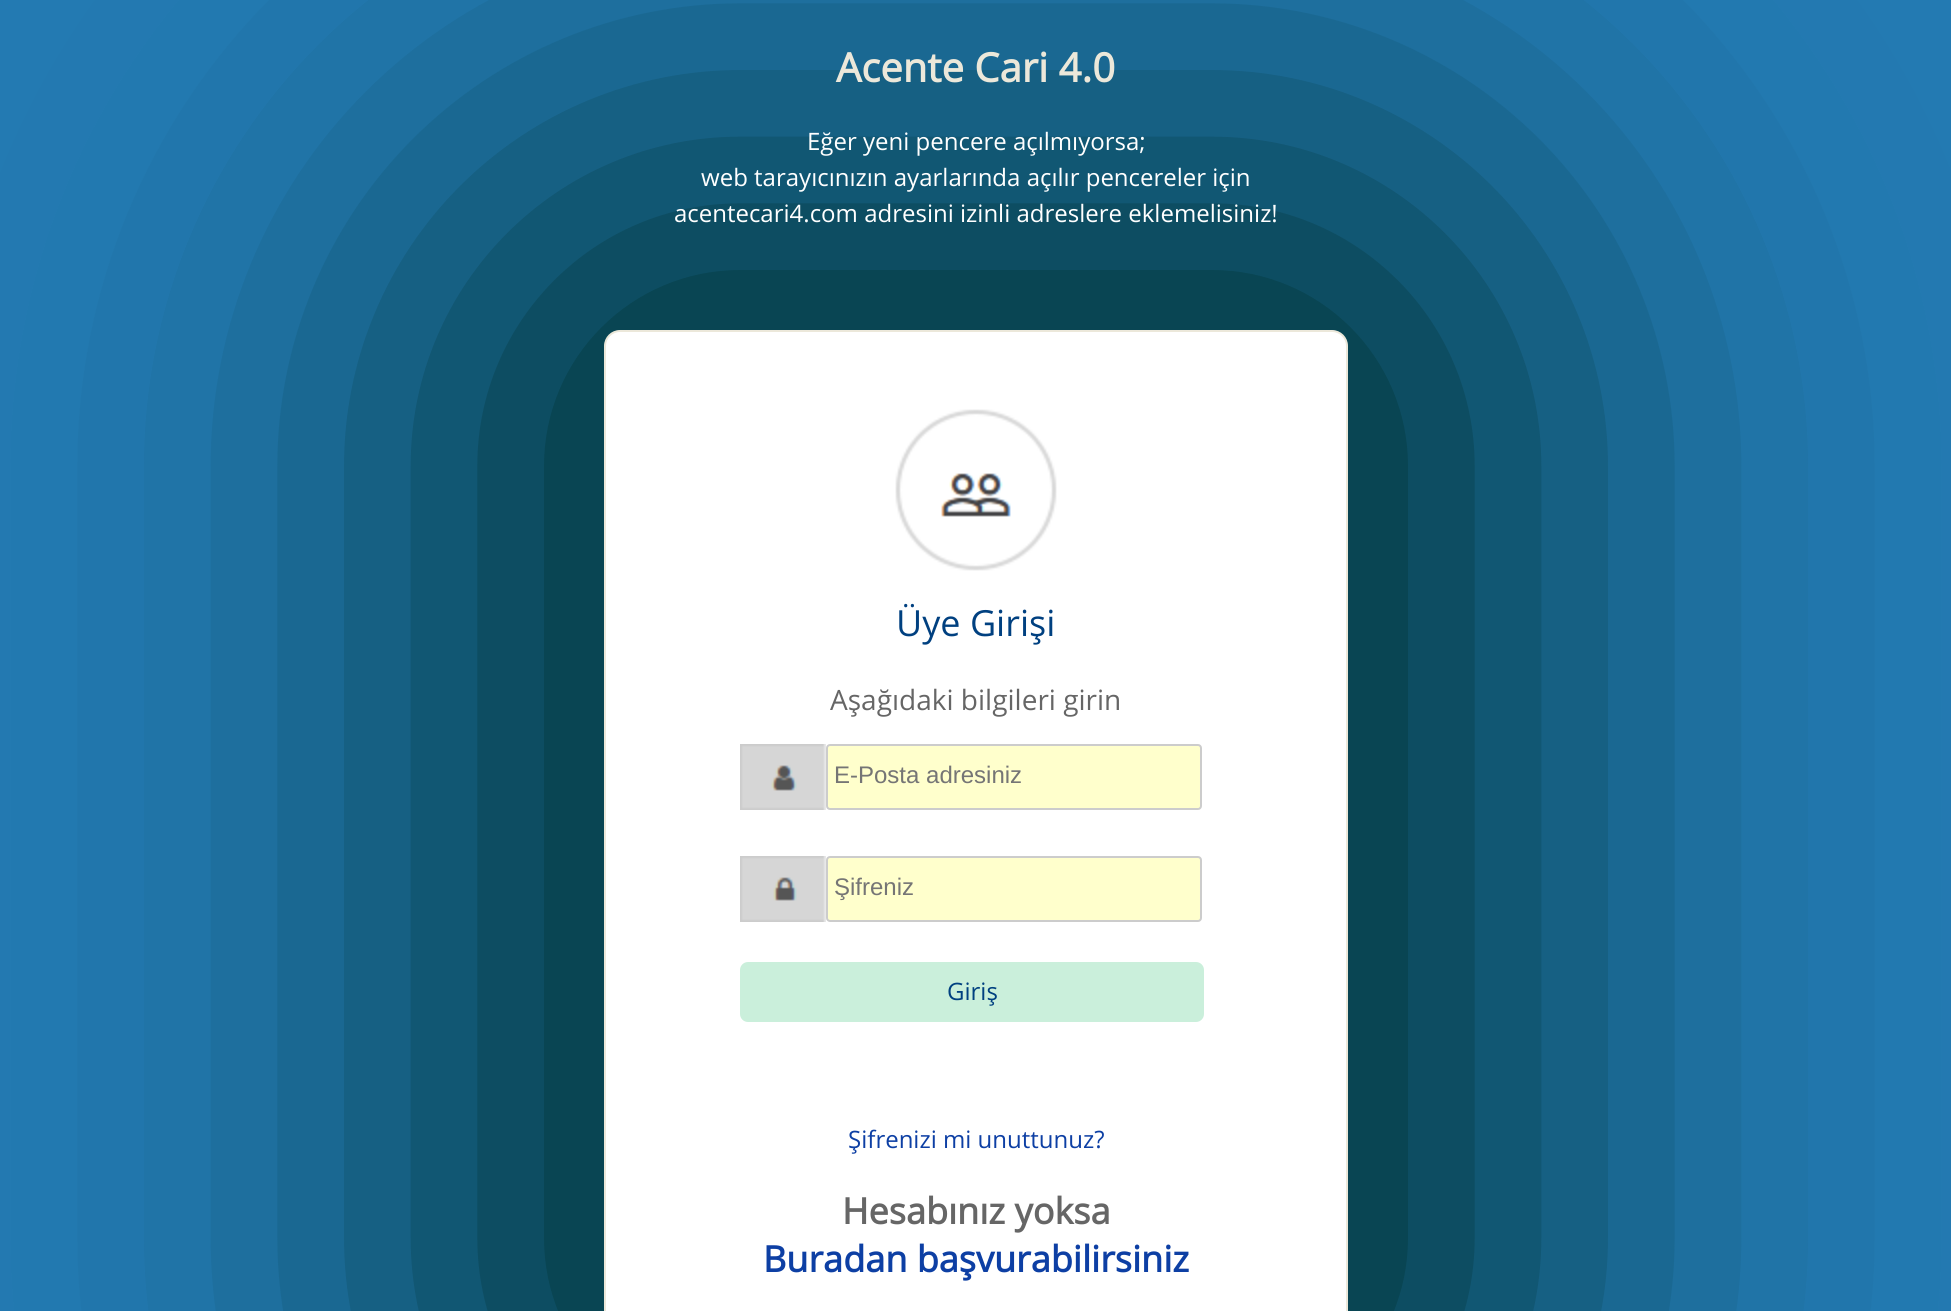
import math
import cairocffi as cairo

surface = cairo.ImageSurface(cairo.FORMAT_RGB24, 1951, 1311)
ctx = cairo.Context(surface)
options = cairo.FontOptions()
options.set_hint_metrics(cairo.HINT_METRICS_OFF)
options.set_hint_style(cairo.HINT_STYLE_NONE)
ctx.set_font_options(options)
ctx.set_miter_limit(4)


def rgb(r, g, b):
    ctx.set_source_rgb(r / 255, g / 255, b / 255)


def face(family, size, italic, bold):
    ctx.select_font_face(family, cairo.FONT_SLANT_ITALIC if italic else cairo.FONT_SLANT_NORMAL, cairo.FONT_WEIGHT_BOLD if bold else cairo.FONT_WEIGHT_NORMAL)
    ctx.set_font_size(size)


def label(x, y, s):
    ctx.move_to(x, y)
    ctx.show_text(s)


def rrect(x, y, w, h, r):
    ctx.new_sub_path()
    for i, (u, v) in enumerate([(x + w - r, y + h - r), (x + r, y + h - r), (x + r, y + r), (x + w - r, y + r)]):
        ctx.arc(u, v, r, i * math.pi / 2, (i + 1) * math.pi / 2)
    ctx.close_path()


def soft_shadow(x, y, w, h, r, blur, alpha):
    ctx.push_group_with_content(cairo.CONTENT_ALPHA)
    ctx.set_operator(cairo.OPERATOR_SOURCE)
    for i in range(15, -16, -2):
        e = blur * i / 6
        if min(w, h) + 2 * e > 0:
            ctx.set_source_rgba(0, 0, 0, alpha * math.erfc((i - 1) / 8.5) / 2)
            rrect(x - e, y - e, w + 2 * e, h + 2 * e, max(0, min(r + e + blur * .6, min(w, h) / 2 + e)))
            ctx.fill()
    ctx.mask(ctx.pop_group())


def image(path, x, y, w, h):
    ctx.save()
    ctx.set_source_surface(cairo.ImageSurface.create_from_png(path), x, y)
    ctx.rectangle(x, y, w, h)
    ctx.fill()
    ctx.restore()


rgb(35, 122, 178)
ctx.paint()
rgb(0, 51, 51)
soft_shadow(444, 170, 1064, 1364, 176, 200, 1)
face('Open Sans', 40, 0, 1)
rgb(236, 232, 218)
label(836, 82, 'Acente Cari 4.0')
face('Open Sans', 24, 0, 0)
rgb(255, 255, 255)
label(807, 150, 'Eğer yeni pencere açılmıyorsa;')
label(701, 186, 'web tarayıcınızın ayarlarında açılır pencereler için')
label(674, 222, 'acentecari4.com adresini izinli adreslere eklemelisiniz!')
rrect(605, 331, 742, 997, 15)
ctx.fill_preserve()
rgb(236, 232, 218)
ctx.stroke()
image('image0.png', 895, 409, 162, 162)
face('Open Sans', 36, 0, 0)
rgb(0, 64, 128)
label(896, 636, 'Üye Girişi')
face('Open Sans', 28, 0, 0)
rgb(102, 102, 102)
label(830, 710, 'Aşağıdaki bilgileri girin')
image('image1.png', 740, 744, 86, 66)
rgb(255, 255, 204)
rrect(827, 745, 374, 64, 3)
ctx.fill_preserve()
rgb(204, 204, 204)
ctx.stroke()
face('Liberation Sans', 24, 0, 0)
rgb(117, 117, 117)
label(834, 783, 'E-Posta adresiniz')
image('image2.png', 740, 856, 86, 66)
rgb(255, 255, 204)
rrect(827, 857, 374, 64, 3)
ctx.fill_preserve()
rgb(204, 204, 204)
ctx.stroke()
rgb(117, 117, 117)
label(834, 895, 'Şifreniz')
rgb(202, 239, 219)
rrect(740, 962, 464, 60, 8)
ctx.fill()
face('Open Sans', 24, 0, 0)
rgb(0, 64, 128)
label(947, 1000, 'Giriş')
rgb(13, 63, 164)
label(848, 1148, 'Şifrenizi mi unuttunuz?')
face('Open Sans', 36, 0, 1)
rgb(102, 102, 102)
label(842, 1224, 'Hesabınız yoksa')
rgb(13, 63, 164)
label(763, 1272, 'Buradan başvurabilirsiniz')
surface.write_to_png('render.png')
